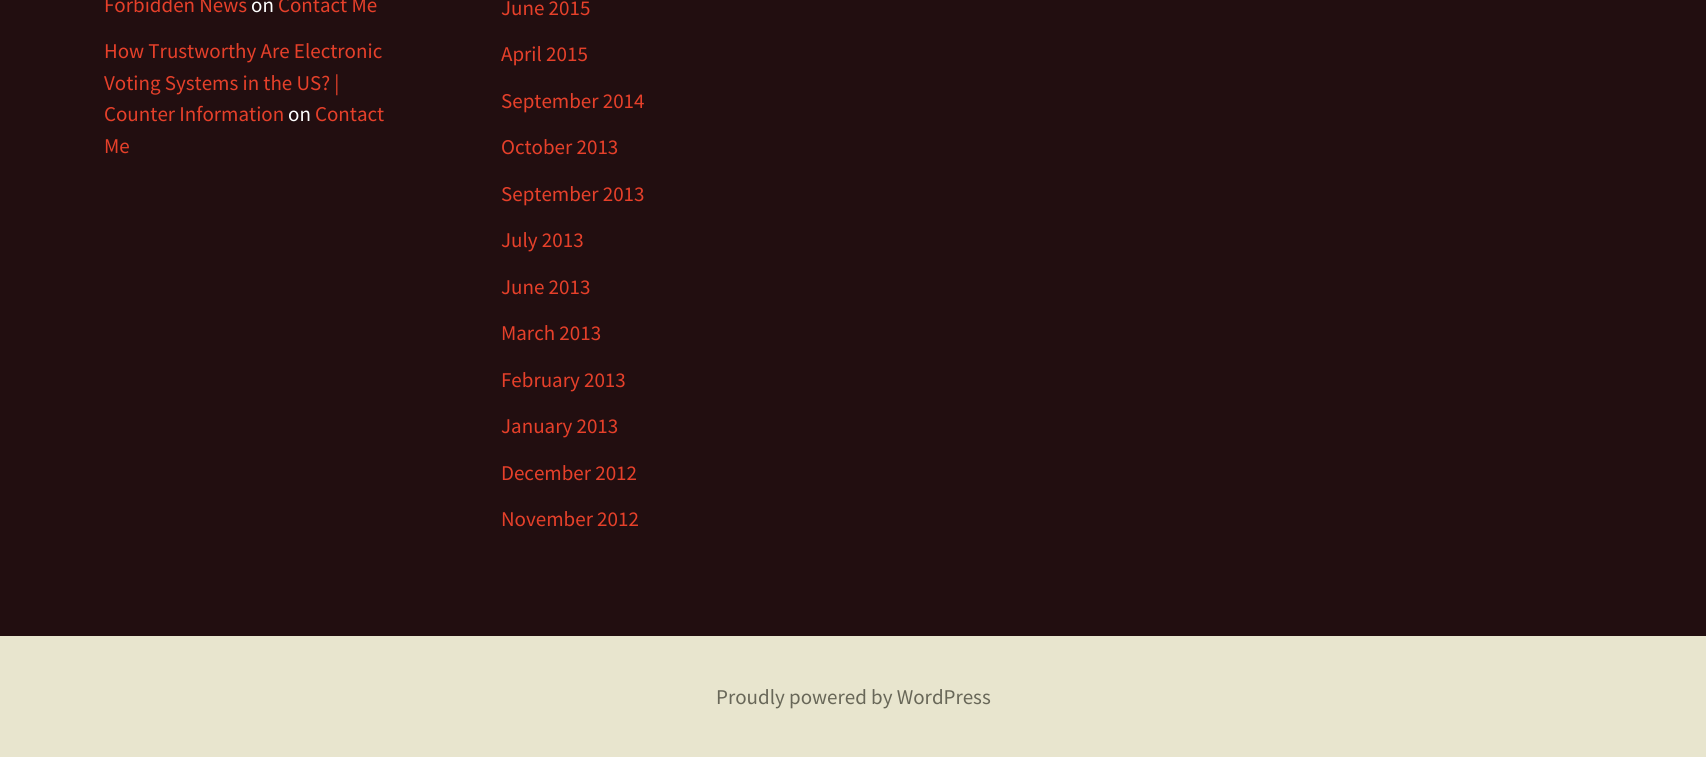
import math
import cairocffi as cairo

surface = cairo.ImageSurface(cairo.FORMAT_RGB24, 1706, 757)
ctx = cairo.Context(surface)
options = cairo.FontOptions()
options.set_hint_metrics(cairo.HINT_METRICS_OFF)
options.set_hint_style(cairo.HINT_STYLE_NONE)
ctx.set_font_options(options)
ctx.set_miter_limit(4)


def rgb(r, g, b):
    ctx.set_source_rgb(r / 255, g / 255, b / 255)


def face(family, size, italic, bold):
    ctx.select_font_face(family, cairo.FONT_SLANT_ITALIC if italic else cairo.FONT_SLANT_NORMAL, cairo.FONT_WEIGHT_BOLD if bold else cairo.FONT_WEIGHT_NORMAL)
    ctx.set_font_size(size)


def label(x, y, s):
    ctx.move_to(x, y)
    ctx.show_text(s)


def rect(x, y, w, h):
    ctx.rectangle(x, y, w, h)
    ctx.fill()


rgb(232, 229, 206)
ctx.paint()
rgb(34, 14, 16)
rect(0, 0, 1706, 636)
face('Source Sans Pro', 21, 0, 0)
rgb(230, 64, 42)
label(104, 12, 'Forbidden News')
rgb(255, 255, 255)
label(251, 12, 'on')
rgb(230, 64, 42)
label(278, 12, 'Contact Me')
label(104, 58, 'How Trustworthy Are Electronic')
label(104, 90, 'Voting Systems in the US? |')
label(104, 121, 'Counter Information')
rgb(255, 255, 255)
label(288, 121, 'on')
rgb(230, 64, 42)
label(315, 121, 'Contact')
label(104, 153, 'Me')
label(501, 15, 'June 2015')
label(501, 61, 'April 2015')
label(501, 108, 'September 2014')
label(501, 154, 'October 2013')
label(501, 201, 'September 2013')
label(501, 247, 'July 2013')
label(501, 294, 'June 2013')
label(501, 340, 'March 2013')
label(501, 387, 'February 2013')
label(501, 433, 'January 2013')
label(501, 480, 'December 2012')
label(501, 526, 'November 2012')
rgb(104, 103, 88)
label(716, 704, 'Proudly powered by WordPress')
surface.write_to_png('render.png')
